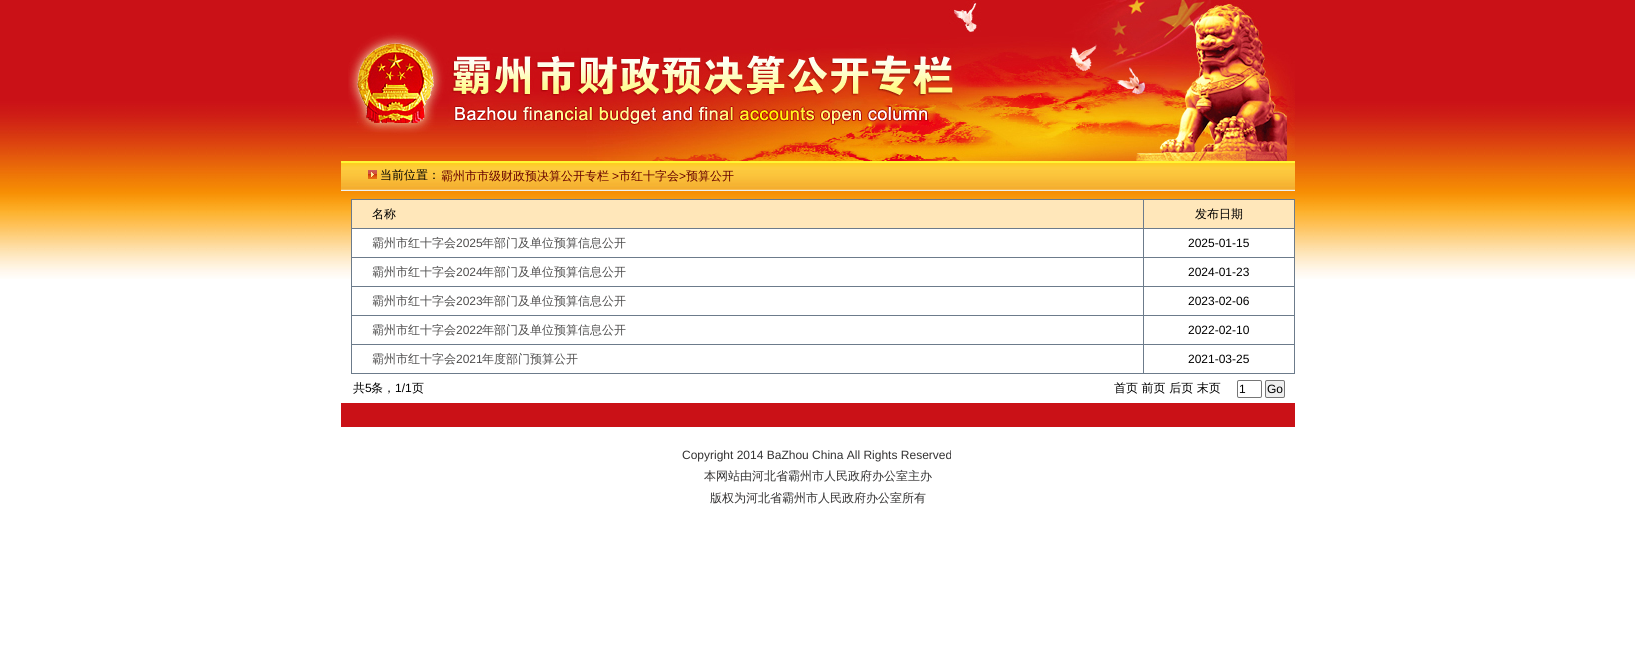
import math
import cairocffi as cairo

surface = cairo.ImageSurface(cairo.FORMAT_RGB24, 1635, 647)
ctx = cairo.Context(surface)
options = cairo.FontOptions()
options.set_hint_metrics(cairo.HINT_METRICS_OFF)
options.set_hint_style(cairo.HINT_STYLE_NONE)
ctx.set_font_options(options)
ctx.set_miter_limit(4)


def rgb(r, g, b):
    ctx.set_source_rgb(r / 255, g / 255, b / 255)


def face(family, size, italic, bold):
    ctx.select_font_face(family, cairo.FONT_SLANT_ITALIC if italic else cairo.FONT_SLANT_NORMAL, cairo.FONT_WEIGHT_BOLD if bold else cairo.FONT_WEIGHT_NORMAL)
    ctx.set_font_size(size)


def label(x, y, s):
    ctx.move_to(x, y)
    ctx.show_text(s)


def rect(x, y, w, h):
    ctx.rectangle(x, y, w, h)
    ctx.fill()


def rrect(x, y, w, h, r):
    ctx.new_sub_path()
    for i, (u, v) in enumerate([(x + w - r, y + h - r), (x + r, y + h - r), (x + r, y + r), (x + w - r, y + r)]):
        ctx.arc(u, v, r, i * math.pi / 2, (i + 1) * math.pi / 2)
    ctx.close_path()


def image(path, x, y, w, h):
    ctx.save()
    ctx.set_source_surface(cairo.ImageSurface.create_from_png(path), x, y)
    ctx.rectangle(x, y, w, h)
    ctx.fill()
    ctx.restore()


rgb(255, 255, 255)
ctx.paint()
image('image0.png', 0, 0, 1635, 279)
image('image1.png', 348, 0, 947, 161)
image('image2.png', 341, 161, 954, 30)
image('image3.png', 368, 170, 9, 9)
face('WenQuanYi Zen Hei Medium', 12, 0, 0)
rgb(0, 0, 0)
label(380, 179, '当前位置：')
rgb(102, 0, 0)
label(441, 180, '霸州市市级财政预决算公开专栏')
face('Liberation Sans', 12, 0, 0)
label(612, 180, '>')
face('WenQuanYi Zen Hei Medium', 12, 0, 0)
label(619, 180, '市红十字会')
face('Liberation Sans', 12, 0, 0)
label(679, 180, '>')
face('WenQuanYi Zen Hei Medium', 12, 0, 0)
label(686, 180, '预算公开')
rgb(255, 255, 255)
rect(352, 229, 942, 50)
rgb(108, 123, 139)
rect(351, 199, 944, 1)
rect(1294, 199, 1, 175)
rect(351, 373, 944, 1)
rect(351, 199, 1, 175)
rgb(255, 231, 186)
rect(352, 200, 791, 28)
rgb(0, 0, 0)
label(372, 218, '名称')
rgb(255, 231, 186)
rect(1144, 200, 150, 28)
rgb(108, 123, 139)
rect(1143, 228, 152, 1)
rect(1143, 257, 152, 1)
rect(1143, 286, 152, 1)
rect(1143, 315, 152, 1)
rect(1143, 344, 152, 1)
rect(1143, 344, 1, 30)
rect(351, 344, 793, 1)
rect(1143, 315, 1, 30)
rect(351, 315, 793, 1)
rect(1143, 286, 1, 30)
rect(351, 286, 793, 1)
rect(1143, 257, 1, 30)
rect(351, 257, 793, 1)
rect(1143, 228, 1, 30)
rect(351, 228, 793, 1)
rect(1143, 199, 1, 30)
rgb(0, 0, 0)
label(1195, 218, '发布日期')
rgb(78, 77, 77)
label(372, 247, '霸州市红十字会')
face('Liberation Sans', 12, 0, 0)
label(456, 247, '2025')
face('WenQuanYi Zen Hei Medium', 12, 0, 0)
label(482, 247, '年部门及单位预算信息公开')
face('Liberation Sans', 12, 0, 0)
rgb(0, 0, 0)
label(1188, 247, '2025-01-15')
face('WenQuanYi Zen Hei Medium', 12, 0, 0)
rgb(78, 77, 77)
label(372, 276, '霸州市红十字会')
face('Liberation Sans', 12, 0, 0)
label(456, 276, '2024')
face('WenQuanYi Zen Hei Medium', 12, 0, 0)
label(482, 276, '年部门及单位预算信息公开')
face('Liberation Sans', 12, 0, 0)
rgb(0, 0, 0)
label(1188, 276, '2024-01-23')
face('WenQuanYi Zen Hei Medium', 12, 0, 0)
rgb(78, 77, 77)
label(372, 305, '霸州市红十字会')
face('Liberation Sans', 12, 0, 0)
label(456, 305, '2023')
face('WenQuanYi Zen Hei Medium', 12, 0, 0)
label(482, 305, '年部门及单位预算信息公开')
face('Liberation Sans', 12, 0, 0)
rgb(0, 0, 0)
label(1188, 305, '2023-02-06')
face('WenQuanYi Zen Hei Medium', 12, 0, 0)
rgb(78, 77, 77)
label(372, 334, '霸州市红十字会')
face('Liberation Sans', 12, 0, 0)
label(456, 334, '2022')
face('WenQuanYi Zen Hei Medium', 12, 0, 0)
label(482, 334, '年部门及单位预算信息公开')
face('Liberation Sans', 12, 0, 0)
rgb(0, 0, 0)
label(1188, 334, '2022-02-10')
face('WenQuanYi Zen Hei Medium', 12, 0, 0)
rgb(78, 77, 77)
label(372, 363, '霸州市红十字会')
face('Liberation Sans', 12, 0, 0)
label(456, 363, '2021')
face('WenQuanYi Zen Hei Medium', 12, 0, 0)
label(482, 363, '年度部门预算公开')
face('Liberation Sans', 12, 0, 0)
rgb(0, 0, 0)
label(1188, 363, '2021-03-25')
face('WenQuanYi Zen Hei Medium', 12, 0, 0)
label(353, 392, '共')
face('Liberation Sans', 12, 0, 0)
label(365, 392, '5')
face('WenQuanYi Zen Hei Medium', 12, 0, 0)
label(371, 392, '条，')
face('Liberation Sans', 12, 0, 0)
label(395, 392, '1/1')
face('WenQuanYi Zen Hei Medium', 12, 0, 0)
label(412, 392, '页')
label(1114, 392, '首页 前页 后页 末页')
rrect(1237.5, 380.5, 24, 17, 1.5)
rgb(118, 118, 118)
ctx.set_line_width(1)
ctx.stroke()
face('Liberation Sans', 12, 0, 0)
rgb(0, 0, 0)
label(1239, 393, '1')
rgb(239, 239, 239)
rrect(1265.5, 380.5, 19, 17, 1.5)
ctx.fill_preserve()
rgb(118, 118, 118)
ctx.stroke()
rgb(0, 0, 0)
label(1267, 393, 'Go')
rgb(202, 17, 23)
rect(341, 403, 954, 24)
rgb(50, 49, 49)
label(682, 459, 'Copyright 2014 BaZhou China All Rights Reserved')
face('WenQuanYi Zen Hei Medium', 12, 0, 0)
label(704, 480, '本网站由河北省霸州市人民政府办公室主办')
label(710, 502, '版权为河北省霸州市人民政府办公室所有')
surface.write_to_png('render.png')
